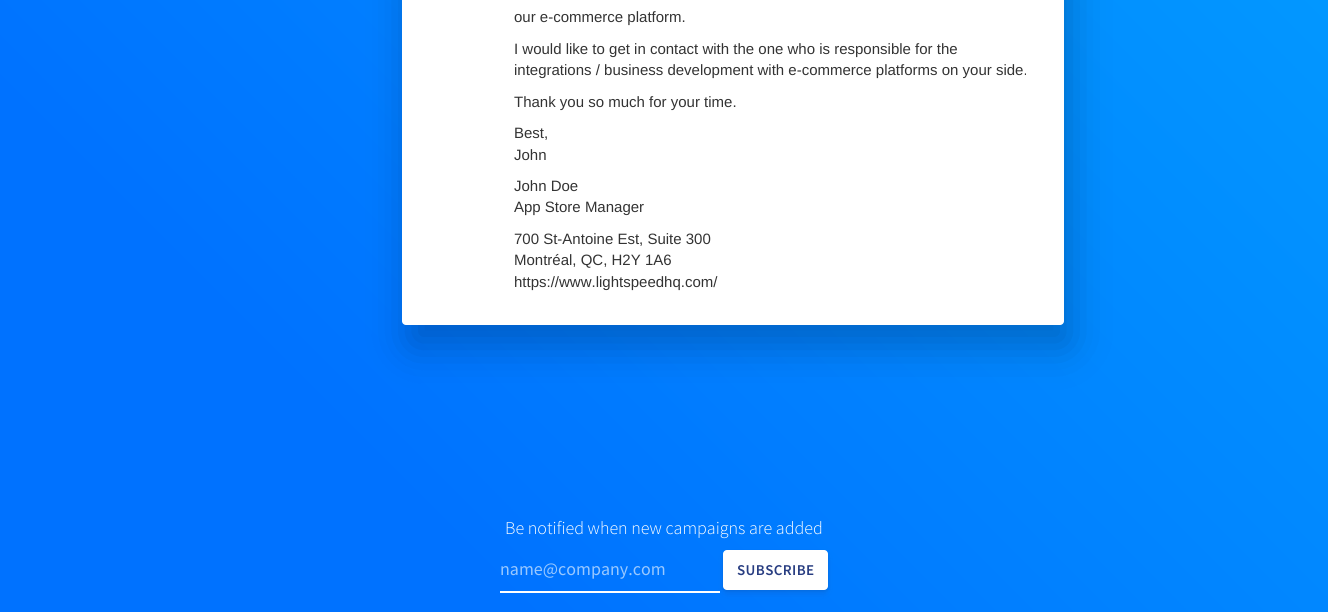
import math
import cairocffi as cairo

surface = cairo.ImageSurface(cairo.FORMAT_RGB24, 1328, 612)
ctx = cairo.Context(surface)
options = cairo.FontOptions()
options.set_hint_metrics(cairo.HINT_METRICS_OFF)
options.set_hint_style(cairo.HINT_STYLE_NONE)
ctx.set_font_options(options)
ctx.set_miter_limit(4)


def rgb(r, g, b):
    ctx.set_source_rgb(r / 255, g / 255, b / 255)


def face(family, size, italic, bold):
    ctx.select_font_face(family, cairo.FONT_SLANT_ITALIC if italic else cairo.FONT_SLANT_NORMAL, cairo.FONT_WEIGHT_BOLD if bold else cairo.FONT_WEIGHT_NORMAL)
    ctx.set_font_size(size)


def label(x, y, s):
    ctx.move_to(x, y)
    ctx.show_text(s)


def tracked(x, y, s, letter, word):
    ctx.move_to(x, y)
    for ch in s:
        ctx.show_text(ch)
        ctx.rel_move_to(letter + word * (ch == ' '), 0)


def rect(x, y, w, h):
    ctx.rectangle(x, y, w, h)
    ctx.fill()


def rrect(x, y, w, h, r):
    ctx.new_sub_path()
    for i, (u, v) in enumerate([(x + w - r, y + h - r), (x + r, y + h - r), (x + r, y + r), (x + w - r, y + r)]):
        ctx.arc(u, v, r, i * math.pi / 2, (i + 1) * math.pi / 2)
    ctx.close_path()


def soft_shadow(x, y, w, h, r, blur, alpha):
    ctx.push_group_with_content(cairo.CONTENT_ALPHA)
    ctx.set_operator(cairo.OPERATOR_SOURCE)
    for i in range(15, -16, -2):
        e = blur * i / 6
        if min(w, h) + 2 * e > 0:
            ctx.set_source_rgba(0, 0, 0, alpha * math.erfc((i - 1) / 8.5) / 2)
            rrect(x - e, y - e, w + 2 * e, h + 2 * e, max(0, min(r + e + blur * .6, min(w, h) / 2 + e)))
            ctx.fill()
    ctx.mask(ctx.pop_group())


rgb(255, 255, 255)
ctx.paint()
gradient = cairo.LinearGradient(-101, 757, 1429, -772)
gradient.add_color_stop_rgba(0.25, 0, 0.447, 1, 1)
gradient.add_color_stop_rgba(1, 0.012, 0.682, 1, 1)
ctx.set_source(gradient)
rect(0, 0, 1328, 612)
rgb(0, 0, 0)
soft_shadow(408, -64, 662, 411, 4, 20, 0.22)
rgb(255, 255, 255)
rrect(402, -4, 662, 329, 4)
ctx.fill()
face('Liberation Sans', 15, 0, 0)
rgb(51, 51, 51)
label(514, 22, 'our e-commerce platform.')
label(514, 54, 'I would like to get in contact with the one who is responsible for the')
label(514, 75, 'integrations / business development with e-commerce platforms on your side.')
label(514, 107, 'Thank you so much for your time.')
label(514, 138, 'Best,')
label(514, 160, 'John')
label(514, 191, 'John Doe')
label(514, 212, 'App Store Manager')
label(514, 244, '700 St-Antoine Est, Suite 300')
label(514, 265, 'Montréal, QC, H2Y 1A6')
label(514, 287, 'https://www.lightspeedhq.com/')
face('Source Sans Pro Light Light', 18, 0, 0)
rgb(255, 255, 255)
label(505, 534, 'Be notified when new campaigns are added')
rect(500, 591, 220, 2)
face('Source Sans Pro', 18, 0, 0)
rgb(153, 200, 255)
label(500, 575, 'name@company.com')
rgb(0, 0, 0)
soft_shadow(723, 551, 105, 40, 4, 1.5, 0.08)
rgb(50, 50, 93)
soft_shadow(723, 554, 105, 40, 4, 3, 0.11)
rgb(255, 255, 255)
rrect(723, 550, 105, 40, 4)
ctx.fill()
face('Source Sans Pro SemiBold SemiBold', 15, 0, 0)
rgb(40, 61, 129)
tracked(737, 575, 'SUBSCRIBE', 0.4, 0)
surface.write_to_png('render.png')
